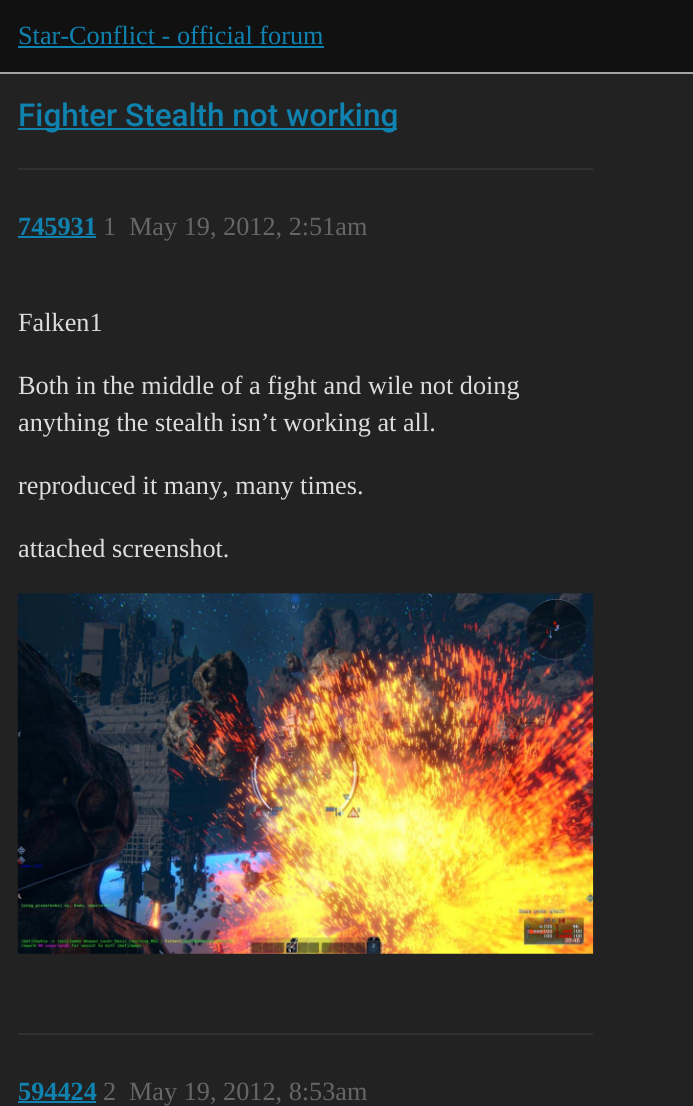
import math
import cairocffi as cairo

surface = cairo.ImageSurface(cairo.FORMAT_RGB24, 693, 1106)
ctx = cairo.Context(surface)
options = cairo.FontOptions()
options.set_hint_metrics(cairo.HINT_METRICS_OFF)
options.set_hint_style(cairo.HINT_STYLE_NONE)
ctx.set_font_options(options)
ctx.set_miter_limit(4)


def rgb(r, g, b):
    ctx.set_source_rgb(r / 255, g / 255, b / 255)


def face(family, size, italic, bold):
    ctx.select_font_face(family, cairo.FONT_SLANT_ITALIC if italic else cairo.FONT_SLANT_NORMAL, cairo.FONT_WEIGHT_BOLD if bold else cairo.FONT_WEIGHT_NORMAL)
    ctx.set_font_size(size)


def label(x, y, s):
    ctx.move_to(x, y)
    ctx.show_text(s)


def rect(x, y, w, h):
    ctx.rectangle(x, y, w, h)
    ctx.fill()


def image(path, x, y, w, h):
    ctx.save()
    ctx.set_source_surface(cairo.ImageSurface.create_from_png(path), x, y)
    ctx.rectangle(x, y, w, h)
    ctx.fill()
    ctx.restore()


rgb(34, 34, 34)
ctx.paint()
rgb(17, 17, 17)
rect(0, 0, 693, 72)
rgb(164, 164, 164)
rect(0, 72, 693, 2)
face('Liberation Serif', 26.25, 0, 0)
rgb(15, 130, 175)
label(18, 44, 'Star-Conflict - official forum')
rect(18, 46, 306, 2)
rect(18, 128, 379, 2)
face('Roboto Medium', 31.5, 0, 0)
label(18, 126, 'Fighter Stealth not working')
rgb(49, 49, 49)
rect(18, 168, 575, 2)
face('Liberation Serif', 26.25, 0, 1)
rgb(15, 130, 175)
label(18, 235, '745931')
rect(18, 236, 78, 2)
face('Liberation Serif', 26.25, 0, 0)
rgb(102, 102, 102)
label(103, 235, '1')
label(129, 235, 'May 19, 2012, 2:51am')
rgb(221, 221, 221)
label(18, 331, 'Falken1')
label(18, 394, 'Both in the middle of a fight and wile not doing')
label(18, 431, 'anything the stealth isn’t working at all.')
label(18, 494, 'reproduced it many, many times.')
label(18, 557, 'attached screenshot.')
image('image0.png', 17, 593, 577, 361)
rgb(49, 49, 49)
rect(18, 1033, 575, 2)
face('Liberation Serif', 26.25, 0, 1)
rgb(15, 130, 175)
label(18, 1100, '594424')
rect(18, 1101, 78, 2)
face('Liberation Serif', 26.25, 0, 0)
rgb(102, 102, 102)
label(103, 1100, '2')
label(129, 1100, 'May 19, 2012, 8:53am')
surface.write_to_png('render.png')
